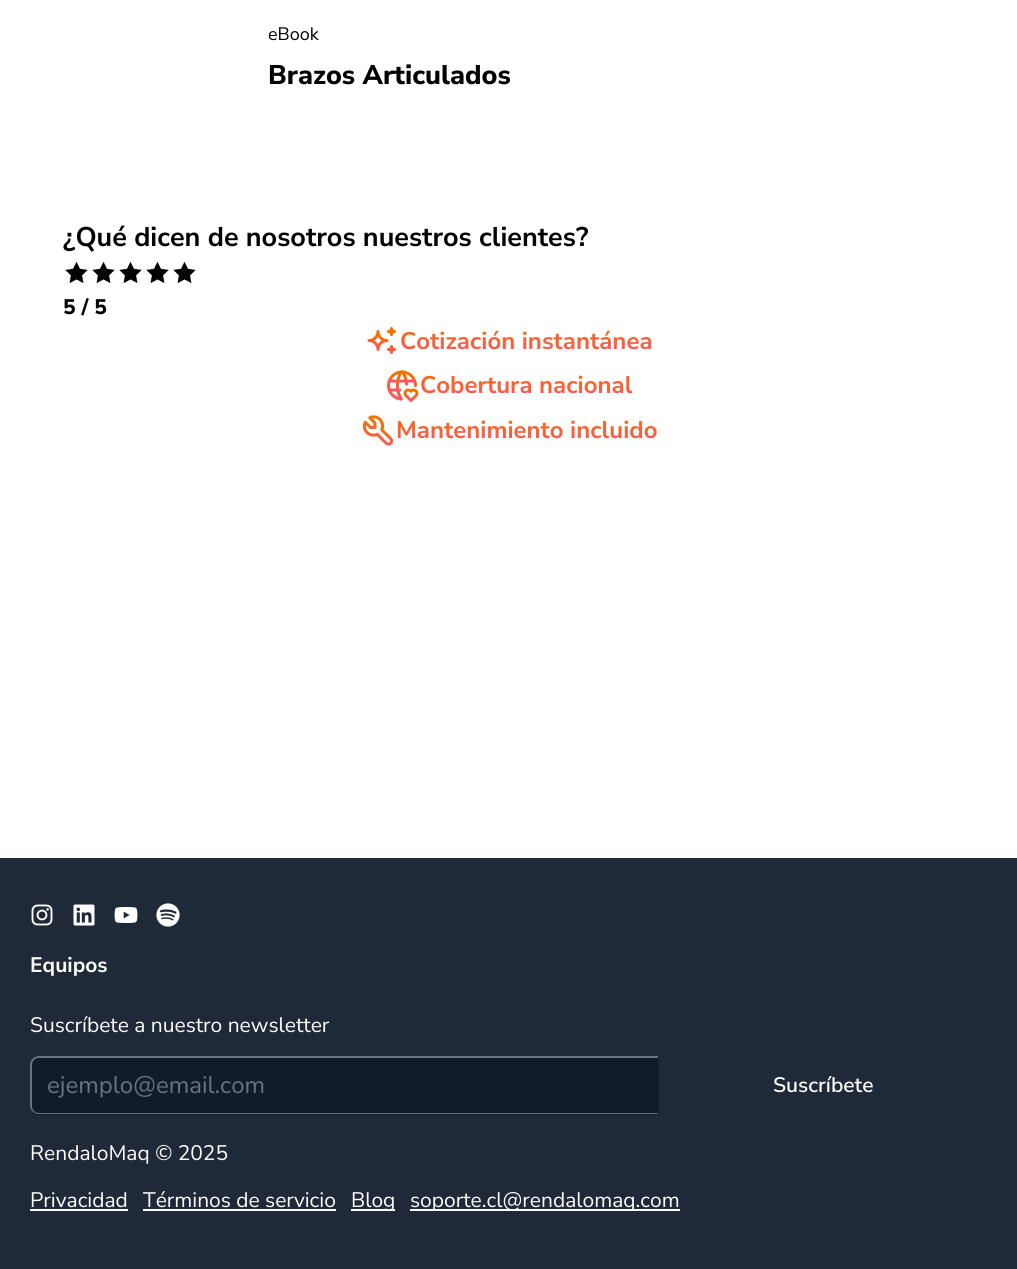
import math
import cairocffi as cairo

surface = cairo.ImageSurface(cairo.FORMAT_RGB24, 1017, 1269)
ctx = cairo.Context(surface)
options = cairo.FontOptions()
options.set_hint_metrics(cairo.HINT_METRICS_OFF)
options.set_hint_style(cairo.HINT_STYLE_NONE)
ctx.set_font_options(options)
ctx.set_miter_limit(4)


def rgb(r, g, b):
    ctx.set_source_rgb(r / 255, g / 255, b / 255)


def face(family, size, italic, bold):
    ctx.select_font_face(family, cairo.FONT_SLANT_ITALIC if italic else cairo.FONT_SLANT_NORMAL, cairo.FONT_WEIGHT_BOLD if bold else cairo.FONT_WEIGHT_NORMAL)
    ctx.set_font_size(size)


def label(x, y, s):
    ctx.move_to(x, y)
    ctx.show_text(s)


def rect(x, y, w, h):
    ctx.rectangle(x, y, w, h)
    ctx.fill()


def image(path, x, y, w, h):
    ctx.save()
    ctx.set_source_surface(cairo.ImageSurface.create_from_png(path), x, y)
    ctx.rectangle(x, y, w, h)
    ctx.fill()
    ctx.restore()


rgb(255, 255, 255)
ctx.paint()
face('Nunito Sans', 18, 0, 0)
rgb(0, 0, 0)
label(268, 40, 'eBook')
face('Nunito Sans ExtraBold', 27, 0, 0)
label(268, 84, 'Brazos Articulados')
face('Nunito Sans', 27, 0, 1)
label(63, 246, '¿Qué dicen de nosotros nuestros clientes?')
image('image0.png', 65, 261, 23, 22)
image('image0.png', 92, 261, 23, 22)
image('image0.png', 119, 261, 23, 22)
image('image0.png', 146, 261, 23, 22)
image('image0.png', 173, 261, 23, 22)
face('Nunito Sans ExtraBold', 21, 0, 0)
label(63, 314, '5 / 5')
image('image1.png', 367, 327, 29, 27)
face('Nunito Sans', 24, 0, 1)
gradient = cairo.LinearGradient(526, 323, 526, 360)
gradient.add_color_stop_rgba(0, 0.945, 0.443, 0.016, 1)
gradient.add_color_stop_rgba(1, 0.996, 0.318, 0.443, 1)
ctx.set_source(gradient)
label(400, 349, 'Cotización instantánea')
image('image2.png', 387, 370, 32, 32)
gradient = cairo.LinearGradient(527, 368, 527, 405)
gradient.add_color_stop_rgba(0, 0.945, 0.443, 0.016, 1)
gradient.add_color_stop_rgba(1, 0.996, 0.318, 0.443, 1)
ctx.set_source(gradient)
label(420, 393, 'Cobertura nacional')
image('image3.png', 362, 415, 32, 31)
gradient = cairo.LinearGradient(527, 413, 527, 450)
gradient.add_color_stop_rgba(0, 0.945, 0.443, 0.016, 1)
gradient.add_color_stop_rgba(1, 0.996, 0.318, 0.443, 1)
ctx.set_source(gradient)
label(396, 438, 'Mantenimiento incluido')
rgb(31, 41, 55)
rect(0, 858, 1017, 411)
image('image4.png', 31, 904, 22, 22)
image('image5.png', 73, 904, 22, 22)
image('image6.png', 114, 907, 24, 16)
image('image7.png', 156, 903, 24, 24)
face('Nunito Sans', 21, 0, 1)
rgb(255, 255, 255)
label(30, 972, 'Equipos')
face('Nunito Sans', 21, 0, 0)
label(30, 1032, 'Suscríbete a nuestro newsletter')
rgb(18, 28, 41)
ctx.new_path()
ctx.move_to(39, 1056)
ctx.line_to(659, 1056)
ctx.line_to(659, 1115)
ctx.line_to(39, 1115)
ctx.curve_to(34, 1115, 30, 1111, 30, 1106)
ctx.line_to(30, 1065)
ctx.curve_to(30, 1060, 34, 1056, 39, 1056)
ctx.close_path()
ctx.fill()
rgb(107, 114, 128)
ctx.set_fill_rule(cairo.FILL_RULE_EVEN_ODD)
ctx.new_path()
ctx.move_to(39, 1056)
ctx.line_to(658, 1056)
ctx.line_to(658, 1114)
ctx.line_to(39, 1114)
ctx.curve_to(34, 1114, 30, 1110, 30, 1106)
ctx.line_to(30, 1065)
ctx.curve_to(30, 1060, 34, 1056, 39, 1056)
ctx.close_path()
ctx.move_to(39, 1058)
ctx.line_to(658, 1058)
ctx.line_to(658, 1113)
ctx.line_to(39, 1113)
ctx.curve_to(35, 1113, 32, 1110, 32, 1106)
ctx.line_to(32, 1065)
ctx.curve_to(32, 1061, 35, 1058, 39, 1058)
ctx.close_path()
ctx.fill()
face('Nunito Sans', 24, 0, 0)
label(47, 1093, 'ejemplo@email.com')
face('Nunito Sans SemiBold', 21, 0, 0)
rgb(255, 255, 255)
label(773, 1092, 'Suscríbete')
face('Nunito Sans', 21, 0, 0)
label(30, 1160, 'RendaloMaq © 2025')
label(30, 1207, 'Privacidad')
rect(30, 1209, 98, 2)
label(143, 1207, 'Términos de servicio')
rect(143, 1209, 193, 2)
rect(351, 1209, 44, 2)
label(351, 1207, 'Blog')
rect(410, 1209, 270, 2)
label(410, 1207, 'soporte.cl@rendalomaq.com')
surface.write_to_png('render.png')
